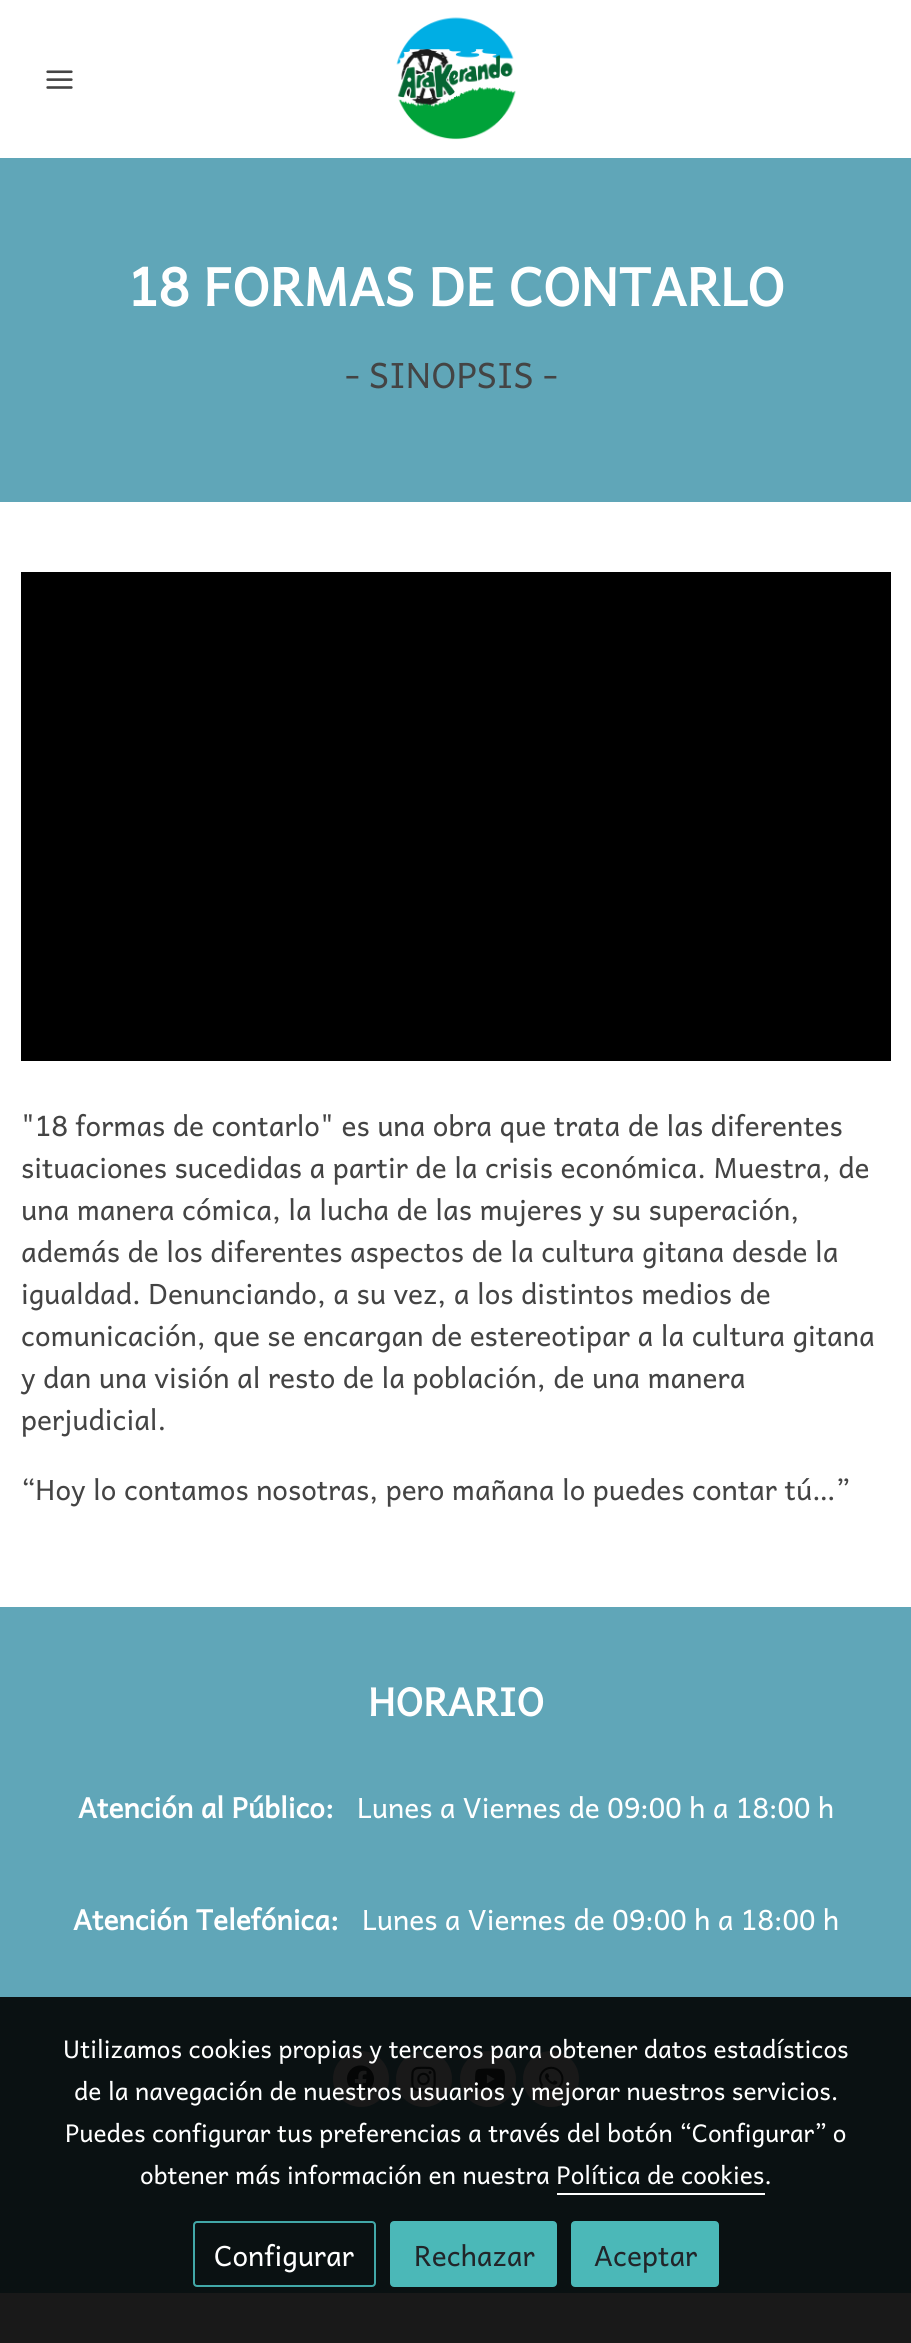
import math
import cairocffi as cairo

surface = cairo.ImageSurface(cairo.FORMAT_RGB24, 911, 2343)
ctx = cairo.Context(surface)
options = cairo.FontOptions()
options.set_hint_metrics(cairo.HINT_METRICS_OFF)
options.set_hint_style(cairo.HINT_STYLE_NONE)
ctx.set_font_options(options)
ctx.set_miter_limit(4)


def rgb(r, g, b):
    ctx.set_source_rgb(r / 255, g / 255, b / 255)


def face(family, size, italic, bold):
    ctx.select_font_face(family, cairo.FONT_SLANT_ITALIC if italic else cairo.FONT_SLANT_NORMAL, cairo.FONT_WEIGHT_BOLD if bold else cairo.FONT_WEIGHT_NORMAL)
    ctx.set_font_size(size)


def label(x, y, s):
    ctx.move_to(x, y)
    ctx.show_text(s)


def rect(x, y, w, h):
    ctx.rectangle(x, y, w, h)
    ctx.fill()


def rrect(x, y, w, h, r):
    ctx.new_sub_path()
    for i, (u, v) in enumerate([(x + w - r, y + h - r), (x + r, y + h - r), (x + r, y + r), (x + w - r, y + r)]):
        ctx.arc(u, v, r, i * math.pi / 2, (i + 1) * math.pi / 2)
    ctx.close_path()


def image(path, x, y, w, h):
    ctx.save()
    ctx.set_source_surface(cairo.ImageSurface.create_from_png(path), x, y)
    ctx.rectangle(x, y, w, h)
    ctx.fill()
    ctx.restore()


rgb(255, 255, 255)
ctx.paint()
rgb(25, 25, 25)
rect(0, 2293, 911, 50)
image('image0.png', 46, 70, 27, 19)
image('image1.png', 396, 17, 120, 123)
rgb(96, 166, 184)
rect(0, 158, 911, 344)
face('Andika', 52.25, 0, 1)
rgb(255, 255, 255)
label(128, 306, '18 FORMAS DE CONTARLO')
face('Andika', 35, 0, 0)
rgb(68, 68, 68)
label(345, 388, '- SINOPSIS -')
rgb(0, 0, 0)
rect(21, 572, 870, 489)
face('Andika', 28, 0, 0)
rgb(68, 68, 68)
label(21, 1136, '"18 formas de contarlo" es una obra que trata de las diferentes')
label(21, 1178, 'situaciones sucedidas a partir de la crisis económica. Muestra, de')
label(21, 1220, 'una manera cómica, la lucha de las mujeres y su superación,')
label(21, 1262, 'además de los diferentes aspectos de la cultura gitana desde la')
label(21, 1304, 'igualdad. Denunciando, a su vez, a los distintos medios de')
label(21, 1346, 'comunicación, que se encargan de estereotipar a la cultura gitana')
label(21, 1388, 'y dan una visión al resto de la población, de una manera')
label(21, 1430, 'perjudicial.')
label(21, 1500, '“Hoy lo contamos nosotras, pero mañana lo puedes contar tú…”')
rgb(96, 166, 184)
rect(0, 1607, 911, 390)
rgb(10, 17, 18)
rect(0, 1997, 911, 296)
face('Andika', 38.5, 0, 1)
rgb(255, 255, 255)
label(368, 1716, 'HORARIO')
face('Andika', 28, 0, 1)
label(78, 1818, 'Atención al Público:')
face('Andika', 28, 0, 0)
label(357, 1818, 'Lunes a Viernes de 09:00 h a 18:00 h')
face('Andika', 28, 0, 1)
label(73, 1930, 'Atención Telefónica:')
face('Andika', 28, 0, 0)
label(362, 1930, 'Lunes a Viernes de 09:00 h a 18:00 h')
rgb(25, 25, 25)
ctx.new_path()
ctx.arc(361, 2079, 28, 0, 2 * math.pi)
ctx.fill()
image('image2.png', 346, 2065, 29, 28)
ctx.arc(424, 2079, 28, 0, 2 * math.pi)
ctx.fill()
image('image3.png', 411, 2066, 25, 26)
ctx.arc(488, 2079, 28, 0, 2 * math.pi)
ctx.fill()
image('image4.png', 475, 2068, 30, 22)
ctx.arc(551, 2079, 28, 0, 2 * math.pi)
ctx.fill()
image('image5.png', 539, 2066, 25, 26)
face('Andika', 24.5, 0, 0)
rgb(255, 255, 255)
label(63, 2058, 'Utilizamos cookies propias y terceros para obtener datos estadísticos')
label(74, 2100, 'de la navegación de nuestros usuarios y mejorar nuestros servicios.')
label(65, 2142, 'Puedes configurar tus preferencias a través del botón “Configurar” o')
label(140, 2184, 'obtener más información en nuestra Política de cookies.')
rect(557, 2193, 208, 2)
rrect(194, 2222, 181, 64, 3)
rgb(66, 168, 168)
ctx.stroke()
face('Andika', 28, 0, 0)
rgb(255, 255, 255)
label(214, 2266, 'Configurar')
rgb(75, 184, 184)
rrect(391, 2222, 165, 64, 3)
ctx.fill_preserve()
ctx.stroke()
rgb(33, 37, 41)
label(414, 2266, 'Rechazar')
rgb(75, 184, 184)
rrect(572, 2222, 146, 64, 3)
ctx.fill_preserve()
ctx.stroke()
rgb(33, 37, 41)
label(594, 2266, 'Aceptar')
surface.write_to_png('render.png')
